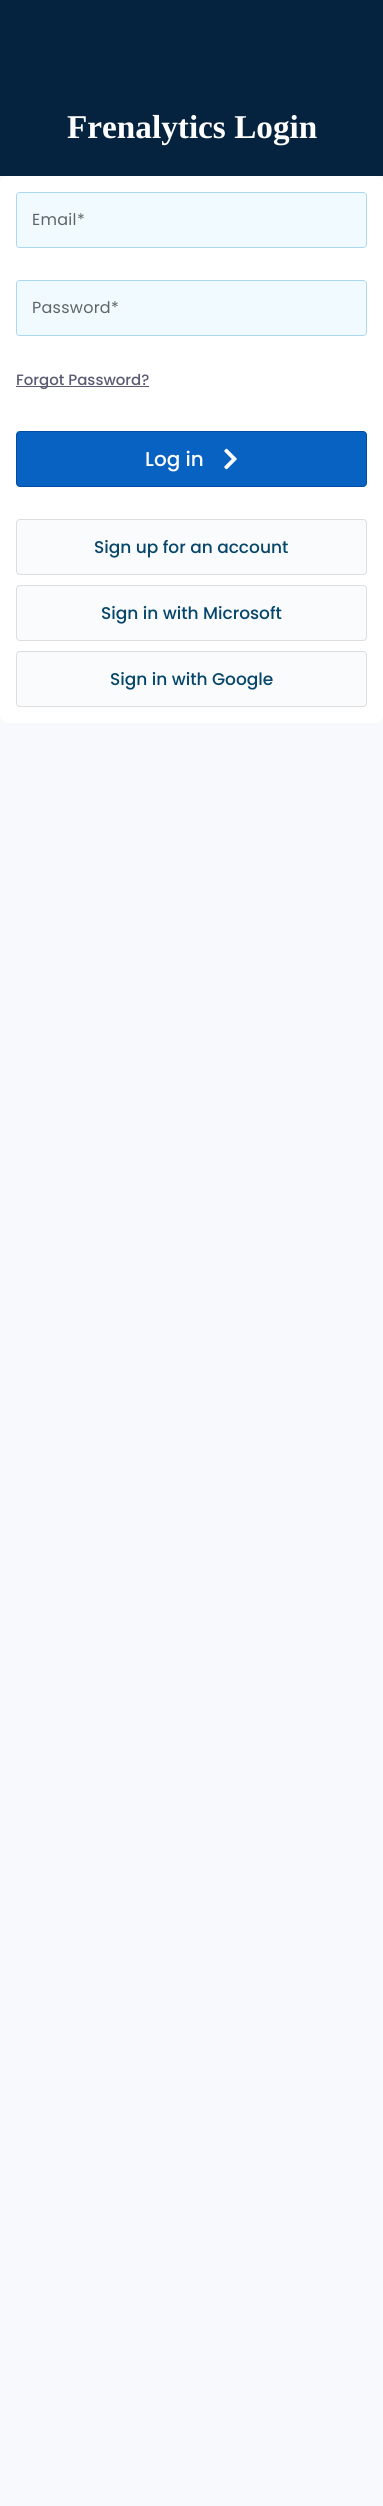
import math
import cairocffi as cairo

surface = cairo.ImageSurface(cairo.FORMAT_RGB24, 383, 2506)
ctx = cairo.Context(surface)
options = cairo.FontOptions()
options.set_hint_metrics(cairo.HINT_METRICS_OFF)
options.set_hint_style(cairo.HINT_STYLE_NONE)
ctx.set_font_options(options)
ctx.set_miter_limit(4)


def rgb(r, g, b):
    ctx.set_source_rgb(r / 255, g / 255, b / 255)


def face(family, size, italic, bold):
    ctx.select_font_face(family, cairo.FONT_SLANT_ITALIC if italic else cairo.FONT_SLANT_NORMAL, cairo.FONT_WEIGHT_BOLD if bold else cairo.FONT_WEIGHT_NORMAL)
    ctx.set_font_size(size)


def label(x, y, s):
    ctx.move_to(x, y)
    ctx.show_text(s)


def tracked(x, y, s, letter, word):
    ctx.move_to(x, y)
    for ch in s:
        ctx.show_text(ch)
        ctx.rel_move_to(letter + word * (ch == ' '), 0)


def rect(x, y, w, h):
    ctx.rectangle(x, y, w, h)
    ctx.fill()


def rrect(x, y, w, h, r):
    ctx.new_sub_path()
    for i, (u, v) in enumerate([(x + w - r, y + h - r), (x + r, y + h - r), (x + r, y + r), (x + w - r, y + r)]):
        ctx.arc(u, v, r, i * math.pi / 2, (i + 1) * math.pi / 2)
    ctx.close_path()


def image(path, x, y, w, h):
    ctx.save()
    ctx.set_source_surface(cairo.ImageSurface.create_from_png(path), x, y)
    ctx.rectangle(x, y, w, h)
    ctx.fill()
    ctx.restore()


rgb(247, 249, 253)
ctx.paint()
rgb(5, 35, 63)
rect(0, 0, 383, 176)
face('Liberation Serif', 33.25, 0, 1)
rgb(255, 255, 255)
label(67, 138, 'Frenalytics Login')
rrect(0, 176, 383, 547, 8)
ctx.fill()
rgb(240, 250, 255)
ctx.new_path()
ctx.move_to(20, 192)
ctx.line_to(363, 192)
ctx.curve_to(365, 192, 367, 194, 367, 196)
ctx.line_to(367, 248)
ctx.line_to(16, 248)
ctx.line_to(16, 196)
ctx.curve_to(16, 194, 18, 192, 20, 192)
ctx.close_path()
ctx.fill()
rgb(170, 215, 242)
ctx.set_fill_rule(cairo.FILL_RULE_EVEN_ODD)
ctx.new_path()
ctx.move_to(20, 192)
ctx.line_to(28, 192)
ctx.line_to(28, 248)
ctx.line_to(20, 248)
ctx.curve_to(18, 248, 16, 246, 16, 244)
ctx.line_to(16, 196)
ctx.curve_to(16, 194, 18, 192, 20, 192)
ctx.close_path()
ctx.move_to(20, 193)
ctx.line_to(28, 193)
ctx.line_to(28, 247)
ctx.line_to(20, 247)
ctx.curve_to(18, 247, 17, 246, 17, 244)
ctx.line_to(17, 196)
ctx.curve_to(17, 194, 18, 193, 20, 193)
ctx.close_path()
ctx.fill()
rect(28, 192, 53, 1)
rect(28, 247, 53, 1)
face('Poppins', 16, 0, 0)
rgb(96, 100, 102)
tracked(32, 225, 'Email', 0.25, 0)
rgb(170, 215, 242)
ctx.new_path()
ctx.move_to(81, 192)
ctx.line_to(363, 192)
ctx.curve_to(365, 192, 367, 194, 367, 196)
ctx.line_to(367, 244)
ctx.curve_to(367, 246, 365, 248, 363, 248)
ctx.line_to(81, 248)
ctx.close_path()
ctx.move_to(81, 193)
ctx.line_to(363, 193)
ctx.curve_to(365, 193, 366, 194, 366, 196)
ctx.line_to(366, 244)
ctx.curve_to(366, 246, 365, 247, 363, 247)
ctx.line_to(81, 247)
ctx.close_path()
ctx.fill()
rgb(96, 100, 102)
tracked(77, 225, '*', 0.25, 0)
rgb(240, 250, 255)
ctx.new_path()
ctx.move_to(20, 280)
ctx.line_to(363, 280)
ctx.curve_to(365, 280, 367, 282, 367, 284)
ctx.line_to(367, 336)
ctx.line_to(16, 336)
ctx.line_to(16, 284)
ctx.curve_to(16, 282, 18, 280, 20, 280)
ctx.close_path()
ctx.fill()
rgb(170, 215, 242)
ctx.new_path()
ctx.move_to(20, 280)
ctx.line_to(28, 280)
ctx.line_to(28, 336)
ctx.line_to(20, 336)
ctx.curve_to(18, 336, 16, 334, 16, 332)
ctx.line_to(16, 284)
ctx.curve_to(16, 282, 18, 280, 20, 280)
ctx.close_path()
ctx.move_to(20, 281)
ctx.line_to(28, 281)
ctx.line_to(28, 335)
ctx.line_to(20, 335)
ctx.curve_to(18, 335, 17, 334, 17, 332)
ctx.line_to(17, 284)
ctx.curve_to(17, 282, 18, 281, 20, 281)
ctx.close_path()
ctx.fill()
rect(28, 280, 87, 1)
rect(28, 335, 87, 1)
rgb(96, 100, 102)
tracked(32, 313, 'Password', 0.25, 0)
rgb(170, 215, 242)
ctx.new_path()
ctx.move_to(115, 280)
ctx.line_to(363, 280)
ctx.curve_to(365, 280, 367, 282, 367, 284)
ctx.line_to(367, 332)
ctx.curve_to(367, 334, 365, 336, 363, 336)
ctx.line_to(115, 336)
ctx.close_path()
ctx.move_to(115, 281)
ctx.line_to(363, 281)
ctx.curve_to(365, 281, 366, 282, 366, 284)
ctx.line_to(366, 332)
ctx.curve_to(366, 334, 365, 335, 363, 335)
ctx.line_to(115, 335)
ctx.close_path()
ctx.fill()
rgb(96, 100, 102)
tracked(111, 313, '*', 0.25, 0)
rgb(90, 90, 115)
rect(16, 386, 133, 1)
face('Poppins Medium', 15, 0, 0)
label(16, 385, 'Forgot Password?')
rgb(7, 98, 194)
rrect(16.5, 431.5, 350, 55, 3.5)
ctx.fill_preserve()
rgb(1, 76, 166)
ctx.set_line_width(1)
ctx.stroke()
face('Poppins Medium', 20, 0, 0)
rgb(255, 255, 255)
label(145, 466, 'Log in')
image('image0.png', 224, 448, 13, 22)
rgb(250, 251, 253)
rrect(16.5, 519.5, 350, 55, 3.5)
ctx.fill_preserve()
rgb(220, 221, 223)
ctx.stroke()
face('Poppins Medium', 17, 0, 0)
rgb(5, 70, 106)
label(94, 553, 'Sign up for an account')
rgb(250, 251, 253)
rrect(16.5, 585.5, 350, 55, 3.5)
ctx.fill_preserve()
rgb(220, 221, 223)
ctx.stroke()
rgb(5, 70, 106)
label(101, 619, 'Sign in with Microsoft')
rgb(250, 251, 253)
rrect(16.5, 651.5, 350, 55, 3.5)
ctx.fill_preserve()
rgb(220, 221, 223)
ctx.stroke()
rgb(5, 70, 106)
label(110, 685, 'Sign in with Google')
surface.write_to_png('render.png')
